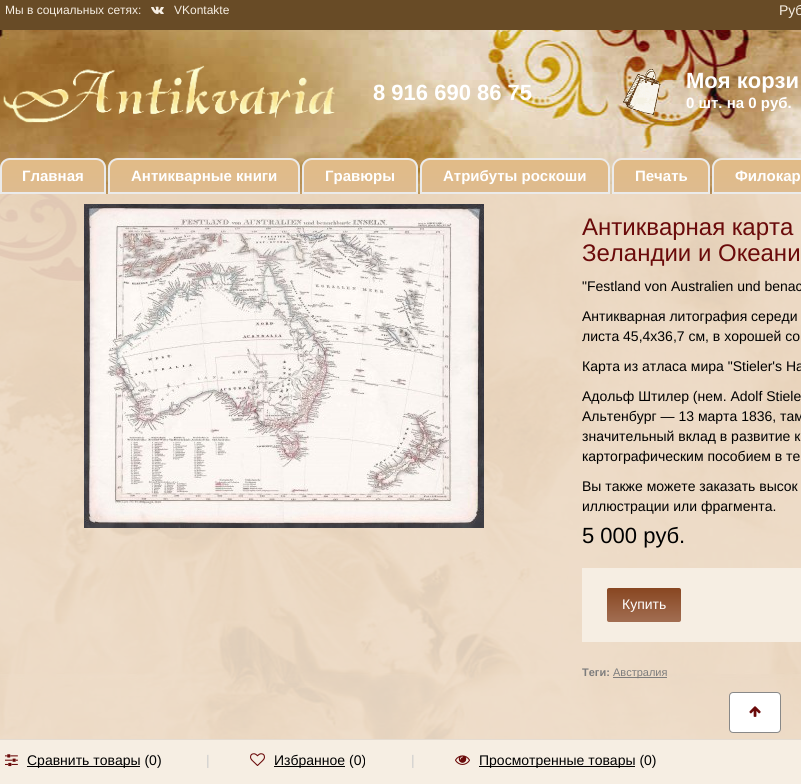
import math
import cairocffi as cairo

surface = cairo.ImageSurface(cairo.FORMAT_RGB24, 801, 784)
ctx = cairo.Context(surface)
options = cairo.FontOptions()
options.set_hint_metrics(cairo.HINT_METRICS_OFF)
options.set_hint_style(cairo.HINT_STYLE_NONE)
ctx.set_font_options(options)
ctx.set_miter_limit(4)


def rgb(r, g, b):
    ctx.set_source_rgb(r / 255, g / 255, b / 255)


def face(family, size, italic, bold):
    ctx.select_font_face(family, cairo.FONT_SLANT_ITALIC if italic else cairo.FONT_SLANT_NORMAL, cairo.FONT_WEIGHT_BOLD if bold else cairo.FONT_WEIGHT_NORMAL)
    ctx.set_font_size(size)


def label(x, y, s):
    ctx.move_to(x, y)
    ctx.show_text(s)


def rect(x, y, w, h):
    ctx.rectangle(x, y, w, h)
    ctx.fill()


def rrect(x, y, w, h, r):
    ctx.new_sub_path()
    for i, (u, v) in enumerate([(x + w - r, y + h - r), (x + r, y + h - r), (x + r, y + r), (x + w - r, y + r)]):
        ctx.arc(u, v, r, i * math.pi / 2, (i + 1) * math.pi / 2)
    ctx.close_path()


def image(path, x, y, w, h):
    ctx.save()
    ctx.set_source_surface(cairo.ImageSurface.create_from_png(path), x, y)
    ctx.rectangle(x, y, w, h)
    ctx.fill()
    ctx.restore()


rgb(255, 255, 255)
ctx.paint()
image('image0.png', 0, 30, 801, 709)
rgb(104, 75, 38)
rect(0, 0, 801, 30)
face('Liberation Sans', 12, 0, 0)
rgb(246, 238, 227)
label(5, 14, 'Мы в социальных сетях:')
image('image1.png', 151, 6, 13, 8)
label(174, 14, 'VKontakte')
face('Liberation Sans', 14, 0, 0)
label(779, 15, 'Руб')
image('image2.png', 3, 65, 332, 58)
face('Liberation Sans', 22, 0, 1)
rgb(255, 255, 255)
label(373, 100, '8 916 690 86 75')
image('image3.png', 623, 68, 38, 47)
label(686, 88, 'Моя корзи')
face('Liberation Sans', 15, 0, 1)
label(686, 108, '0 шт. на 0 руб.')
ctx.save()
ctx.new_path()
ctx.move_to(10, 158)
ctx.line_to(96, 158)
ctx.curve_to(101.5, 158, 106, 162.5, 106, 168)
ctx.line_to(106, 194)
ctx.line_to(0, 194)
ctx.line_to(0, 168)
ctx.curve_to(0, 162.5, 4.5, 158, 10, 158)
ctx.close_path()
ctx.clip()
gradient = cairo.LinearGradient(53, 160, 53, 192)
gradient.add_color_stop_rgba(0, 0.882, 0.733, 0.529, 1)
gradient.add_color_stop_rgba(1, 0.871, 0.733, 0.561, 1)
ctx.set_source(gradient)
rect(0, 160, 106, 32)
ctx.restore()
ctx.new_path()
ctx.move_to(10, 159)
ctx.line_to(96, 159)
ctx.curve_to(101, 159, 105, 163, 105, 168)
ctx.line_to(105, 193)
ctx.line_to(1, 193)
ctx.line_to(1, 168)
ctx.curve_to(1, 163, 5, 159, 10, 159)
ctx.close_path()
rgb(235, 235, 235)
ctx.stroke()
rgb(255, 255, 255)
label(22, 181, 'Главная')
ctx.save()
ctx.new_path()
ctx.move_to(118, 158)
ctx.line_to(290, 158)
ctx.curve_to(295.5, 158, 300, 162.5, 300, 168)
ctx.line_to(300, 194)
ctx.line_to(108, 194)
ctx.line_to(108, 168)
ctx.curve_to(108, 162.5, 112.5, 158, 118, 158)
ctx.close_path()
ctx.clip()
gradient = cairo.LinearGradient(204, 160, 204, 192)
gradient.add_color_stop_rgba(0, 0.882, 0.733, 0.529, 1)
gradient.add_color_stop_rgba(1, 0.871, 0.733, 0.561, 1)
ctx.set_source(gradient)
rect(108, 160, 192, 32)
ctx.restore()
ctx.new_path()
ctx.move_to(118, 159)
ctx.line_to(290, 159)
ctx.curve_to(295, 159, 299, 163, 299, 168)
ctx.line_to(299, 193)
ctx.line_to(109, 193)
ctx.line_to(109, 168)
ctx.curve_to(109, 163, 113, 159, 118, 159)
ctx.close_path()
rgb(235, 235, 235)
ctx.stroke()
rgb(255, 255, 255)
label(131, 181, 'Антикварные книги')
ctx.save()
ctx.new_path()
ctx.move_to(312, 158)
ctx.line_to(408, 158)
ctx.curve_to(413.5, 158, 418, 162.5, 418, 168)
ctx.line_to(418, 194)
ctx.line_to(302, 194)
ctx.line_to(302, 168)
ctx.curve_to(302, 162.5, 306.5, 158, 312, 158)
ctx.close_path()
ctx.clip()
gradient = cairo.LinearGradient(360, 160, 360, 192)
gradient.add_color_stop_rgba(0, 0.882, 0.733, 0.529, 1)
gradient.add_color_stop_rgba(1, 0.871, 0.733, 0.561, 1)
ctx.set_source(gradient)
rect(302, 160, 116, 32)
ctx.restore()
ctx.new_path()
ctx.move_to(312, 159)
ctx.line_to(408, 159)
ctx.curve_to(413, 159, 417, 163, 417, 168)
ctx.line_to(417, 193)
ctx.line_to(303, 193)
ctx.line_to(303, 168)
ctx.curve_to(303, 163, 307, 159, 312, 159)
ctx.close_path()
rgb(235, 235, 235)
ctx.stroke()
rgb(255, 255, 255)
label(325, 181, 'Гравюры')
ctx.save()
ctx.new_path()
ctx.move_to(430, 158)
ctx.line_to(600, 158)
ctx.curve_to(605.5, 158, 610, 162.5, 610, 168)
ctx.line_to(610, 194)
ctx.line_to(420, 194)
ctx.line_to(420, 168)
ctx.curve_to(420, 162.5, 424.5, 158, 430, 158)
ctx.close_path()
ctx.clip()
gradient = cairo.LinearGradient(515, 160, 515, 192)
gradient.add_color_stop_rgba(0, 0.882, 0.733, 0.529, 1)
gradient.add_color_stop_rgba(1, 0.871, 0.733, 0.561, 1)
ctx.set_source(gradient)
rect(420, 160, 190, 32)
ctx.restore()
ctx.new_path()
ctx.move_to(430, 159)
ctx.line_to(600, 159)
ctx.curve_to(605, 159, 609, 163, 609, 168)
ctx.line_to(609, 193)
ctx.line_to(421, 193)
ctx.line_to(421, 168)
ctx.curve_to(421, 163, 425, 159, 430, 159)
ctx.close_path()
rgb(235, 235, 235)
ctx.stroke()
rgb(255, 255, 255)
label(443, 181, 'Атрибуты роскоши')
ctx.save()
ctx.new_path()
ctx.move_to(622, 158)
ctx.line_to(700, 158)
ctx.curve_to(705.5, 158, 710, 162.5, 710, 168)
ctx.line_to(710, 194)
ctx.line_to(612, 194)
ctx.line_to(612, 168)
ctx.curve_to(612, 162.5, 616.5, 158, 622, 158)
ctx.close_path()
ctx.clip()
gradient = cairo.LinearGradient(661, 160, 661, 192)
gradient.add_color_stop_rgba(0, 0.882, 0.733, 0.529, 1)
gradient.add_color_stop_rgba(1, 0.871, 0.733, 0.561, 1)
ctx.set_source(gradient)
rect(612, 160, 98, 32)
ctx.restore()
ctx.new_path()
ctx.move_to(622, 159)
ctx.line_to(700, 159)
ctx.curve_to(705, 159, 709, 163, 709, 168)
ctx.line_to(709, 193)
ctx.line_to(613, 193)
ctx.line_to(613, 168)
ctx.curve_to(613, 163, 617, 159, 622, 159)
ctx.close_path()
rgb(235, 235, 235)
ctx.stroke()
rgb(255, 255, 255)
label(635, 181, 'Печать')
ctx.save()
ctx.new_path()
ctx.move_to(722, 158)
ctx.line_to(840, 158)
ctx.curve_to(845.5, 158, 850, 162.5, 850, 168)
ctx.line_to(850, 194)
ctx.line_to(712, 194)
ctx.line_to(712, 168)
ctx.curve_to(712, 162.5, 716.5, 158, 722, 158)
ctx.close_path()
ctx.clip()
gradient = cairo.LinearGradient(781, 160, 781, 192)
gradient.add_color_stop_rgba(0, 0.882, 0.733, 0.529, 1)
gradient.add_color_stop_rgba(1, 0.871, 0.733, 0.561, 1)
ctx.set_source(gradient)
rect(712, 160, 89, 32)
ctx.restore()
ctx.new_path()
ctx.move_to(722, 159)
ctx.line_to(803, 159)
ctx.curve_to(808, 159, 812, 163, 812, 168)
ctx.line_to(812, 193)
ctx.line_to(713, 193)
ctx.line_to(713, 168)
ctx.curve_to(713, 163, 717, 159, 722, 159)
ctx.close_path()
rgb(235, 235, 235)
ctx.stroke()
rgb(255, 255, 255)
label(735, 181, 'Филокар')
ctx.set_source_rgba(0.929, 0.859, 0.776, 0.9)
rect(0, 194, 801, 498)
image('image4.png', 84, 204, 400, 324)
face('Liberation Sans', 24, 0, 0)
rgb(106, 10, 10)
label(582, 235, 'Антикварная карта')
label(582, 261, 'Зеландии и Океани')
face('Liberation Sans', 14, 0, 0)
rgb(0, 0, 0)
label(582, 291, '"Festland von Australien und benac')
label(582, 321, 'Антикварная литография середи')
label(582, 341, 'листа 45,4х36,7 см, в хорошей со')
label(582, 371, 'Карта из атласа мира "Stieler\'s Ha')
label(582, 401, 'Адольф Штилер (нем. Adolf Stiele')
label(582, 421, 'Альтенбург — 13 марта 1836, там')
label(582, 441, 'значительный вклад в развитие к')
label(582, 461, 'картографическим пособием в те')
label(582, 491, 'Вы также можете заказать высок')
label(582, 511, 'иллюстрации или фрагмента.')
face('Liberation Sans', 22, 0, 0)
label(582, 543, '5 000 руб.')
rgb(246, 238, 227)
rect(582, 568, 219, 74)
gradient = cairo.LinearGradient(644, 588, 644, 622)
gradient.add_color_stop_rgba(0, 0.533, 0.275, 0.129, 1)
gradient.add_color_stop_rgba(1, 0.635, 0.431, 0.322, 1)
ctx.set_source(gradient)
rrect(607, 588, 74, 34, 2)
ctx.fill()
face('Liberation Sans', 14, 0, 0)
rgb(255, 255, 255)
label(622, 609, 'Купить')
face('Liberation Sans', 11, 0, 1)
rgb(125, 125, 125)
label(582, 676, 'Теги:')
rect(613, 677, 54, 1)
face('Liberation Sans', 11, 0, 0)
label(613, 676, 'Австралия')
ctx.set_source_rgba(0.929, 0.859, 0.776, 0.9)
rect(0, 692, 801, 47)
rgb(255, 255, 255)
rrect(729.5, 692.5, 51, 40, 3.5)
ctx.fill_preserve()
rgb(136, 136, 136)
ctx.set_line_width(1)
ctx.stroke()
image('image5.png', 749, 706, 12, 11)
rgb(246, 238, 227)
rect(0, 740, 801, 44)
rgb(228, 220, 210)
rect(0, 739, 801, 1)
image('image6.png', 5, 754, 13, 13)
rgb(0, 0, 0)
rect(27, 766, 113, 1)
face('Liberation Sans', 14, 0, 0)
label(27, 765, 'Сравнить товары (0)')
rgb(204, 204, 204)
label(206, 765, '|')
image('image7.png', 250, 753, 15, 13)
rgb(0, 0, 0)
rect(274, 766, 71, 1)
label(274, 765, 'Избранное (0)')
rgb(204, 204, 204)
label(411, 765, '|')
image('image8.png', 455, 755, 15, 10)
rgb(0, 0, 0)
rect(479, 766, 156, 1)
label(479, 765, 'Просмотренные товары (0)')
surface.write_to_png('render.png')
